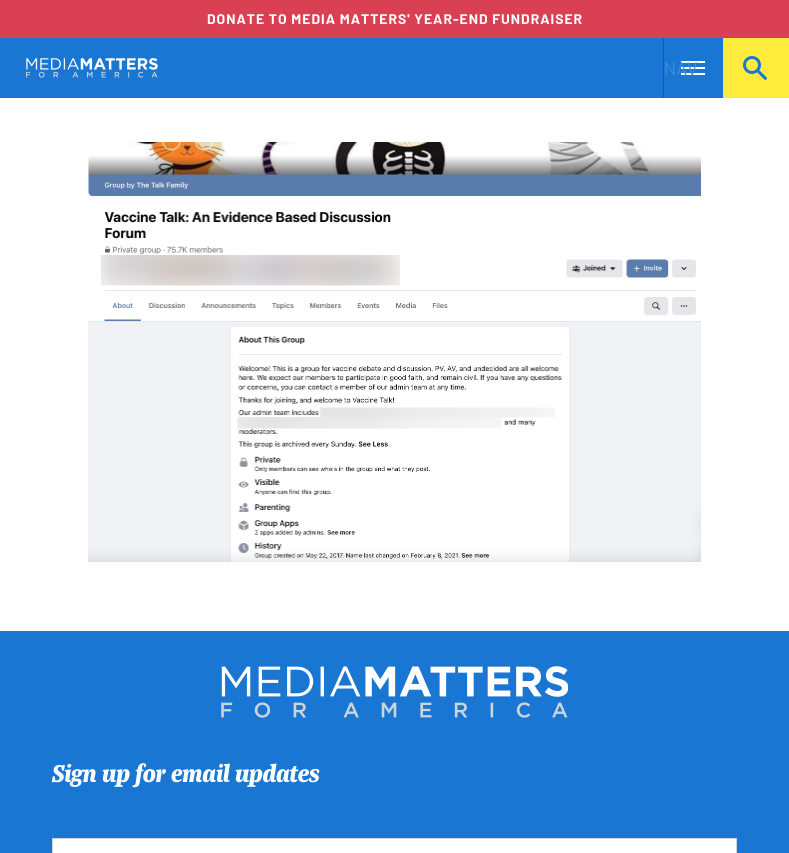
import math
import cairocffi as cairo

surface = cairo.ImageSurface(cairo.FORMAT_RGB24, 789, 853)
ctx = cairo.Context(surface)
options = cairo.FontOptions()
options.set_hint_metrics(cairo.HINT_METRICS_OFF)
options.set_hint_style(cairo.HINT_STYLE_NONE)
ctx.set_font_options(options)
ctx.set_miter_limit(4)


def rgb(r, g, b):
    ctx.set_source_rgb(r / 255, g / 255, b / 255)


def face(family, size, italic, bold):
    ctx.select_font_face(family, cairo.FONT_SLANT_ITALIC if italic else cairo.FONT_SLANT_NORMAL, cairo.FONT_WEIGHT_BOLD if bold else cairo.FONT_WEIGHT_NORMAL)
    ctx.set_font_size(size)


def label(x, y, s):
    ctx.move_to(x, y)
    ctx.show_text(s)


def tracked(x, y, s, letter, word):
    ctx.move_to(x, y)
    for ch in s:
        ctx.show_text(ch)
        ctx.rel_move_to(letter + word * (ch == ' '), 0)


def rect(x, y, w, h):
    ctx.rectangle(x, y, w, h)
    ctx.fill()


def image(path, x, y, w, h):
    ctx.save()
    ctx.set_source_surface(cairo.ImageSurface.create_from_png(path), x, y)
    ctx.rectangle(x, y, w, h)
    ctx.fill()
    ctx.restore()


rgb(255, 255, 255)
ctx.paint()
rgb(218, 64, 84)
rect(0, 0, 789, 38)
face('Barlow', 13.9, 0, 1)
rgb(255, 255, 255)
tracked(207, 24, 'DONATE TO MEDIA MATTERS\' YEAR-END FUNDRAISER', 1, 0)
rgb(25, 118, 210)
rect(0, 38, 723, 60)
image('image0.png', 26, 58, 132, 20)
image('image1.png', 681, 61, 24, 14)
rgb(32, 85, 178)
rect(663, 38, 1, 60)
face('Barlow', 18, 0, 0)
rgb(63, 140, 217)
label(664, 75, 'NAV')
rgb(255, 235, 59)
rect(723, 38, 66, 60)
image('image2.png', 743, 56, 24, 24)
image('image3.png', 88, 142, 613, 420)
rgb(25, 118, 210)
rect(0, 631, 789, 222)
image('image4.png', 221, 666, 347, 52)
face('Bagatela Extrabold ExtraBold', 26, 1, 0)
rgb(255, 255, 255)
label(52, 782, 'Sign up for email updates')
ctx.rectangle(52.5, 838.5, 684, 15)
ctx.fill_preserve()
rgb(204, 212, 221)
ctx.set_line_width(1)
ctx.stroke()
surface.write_to_png('render.png')
